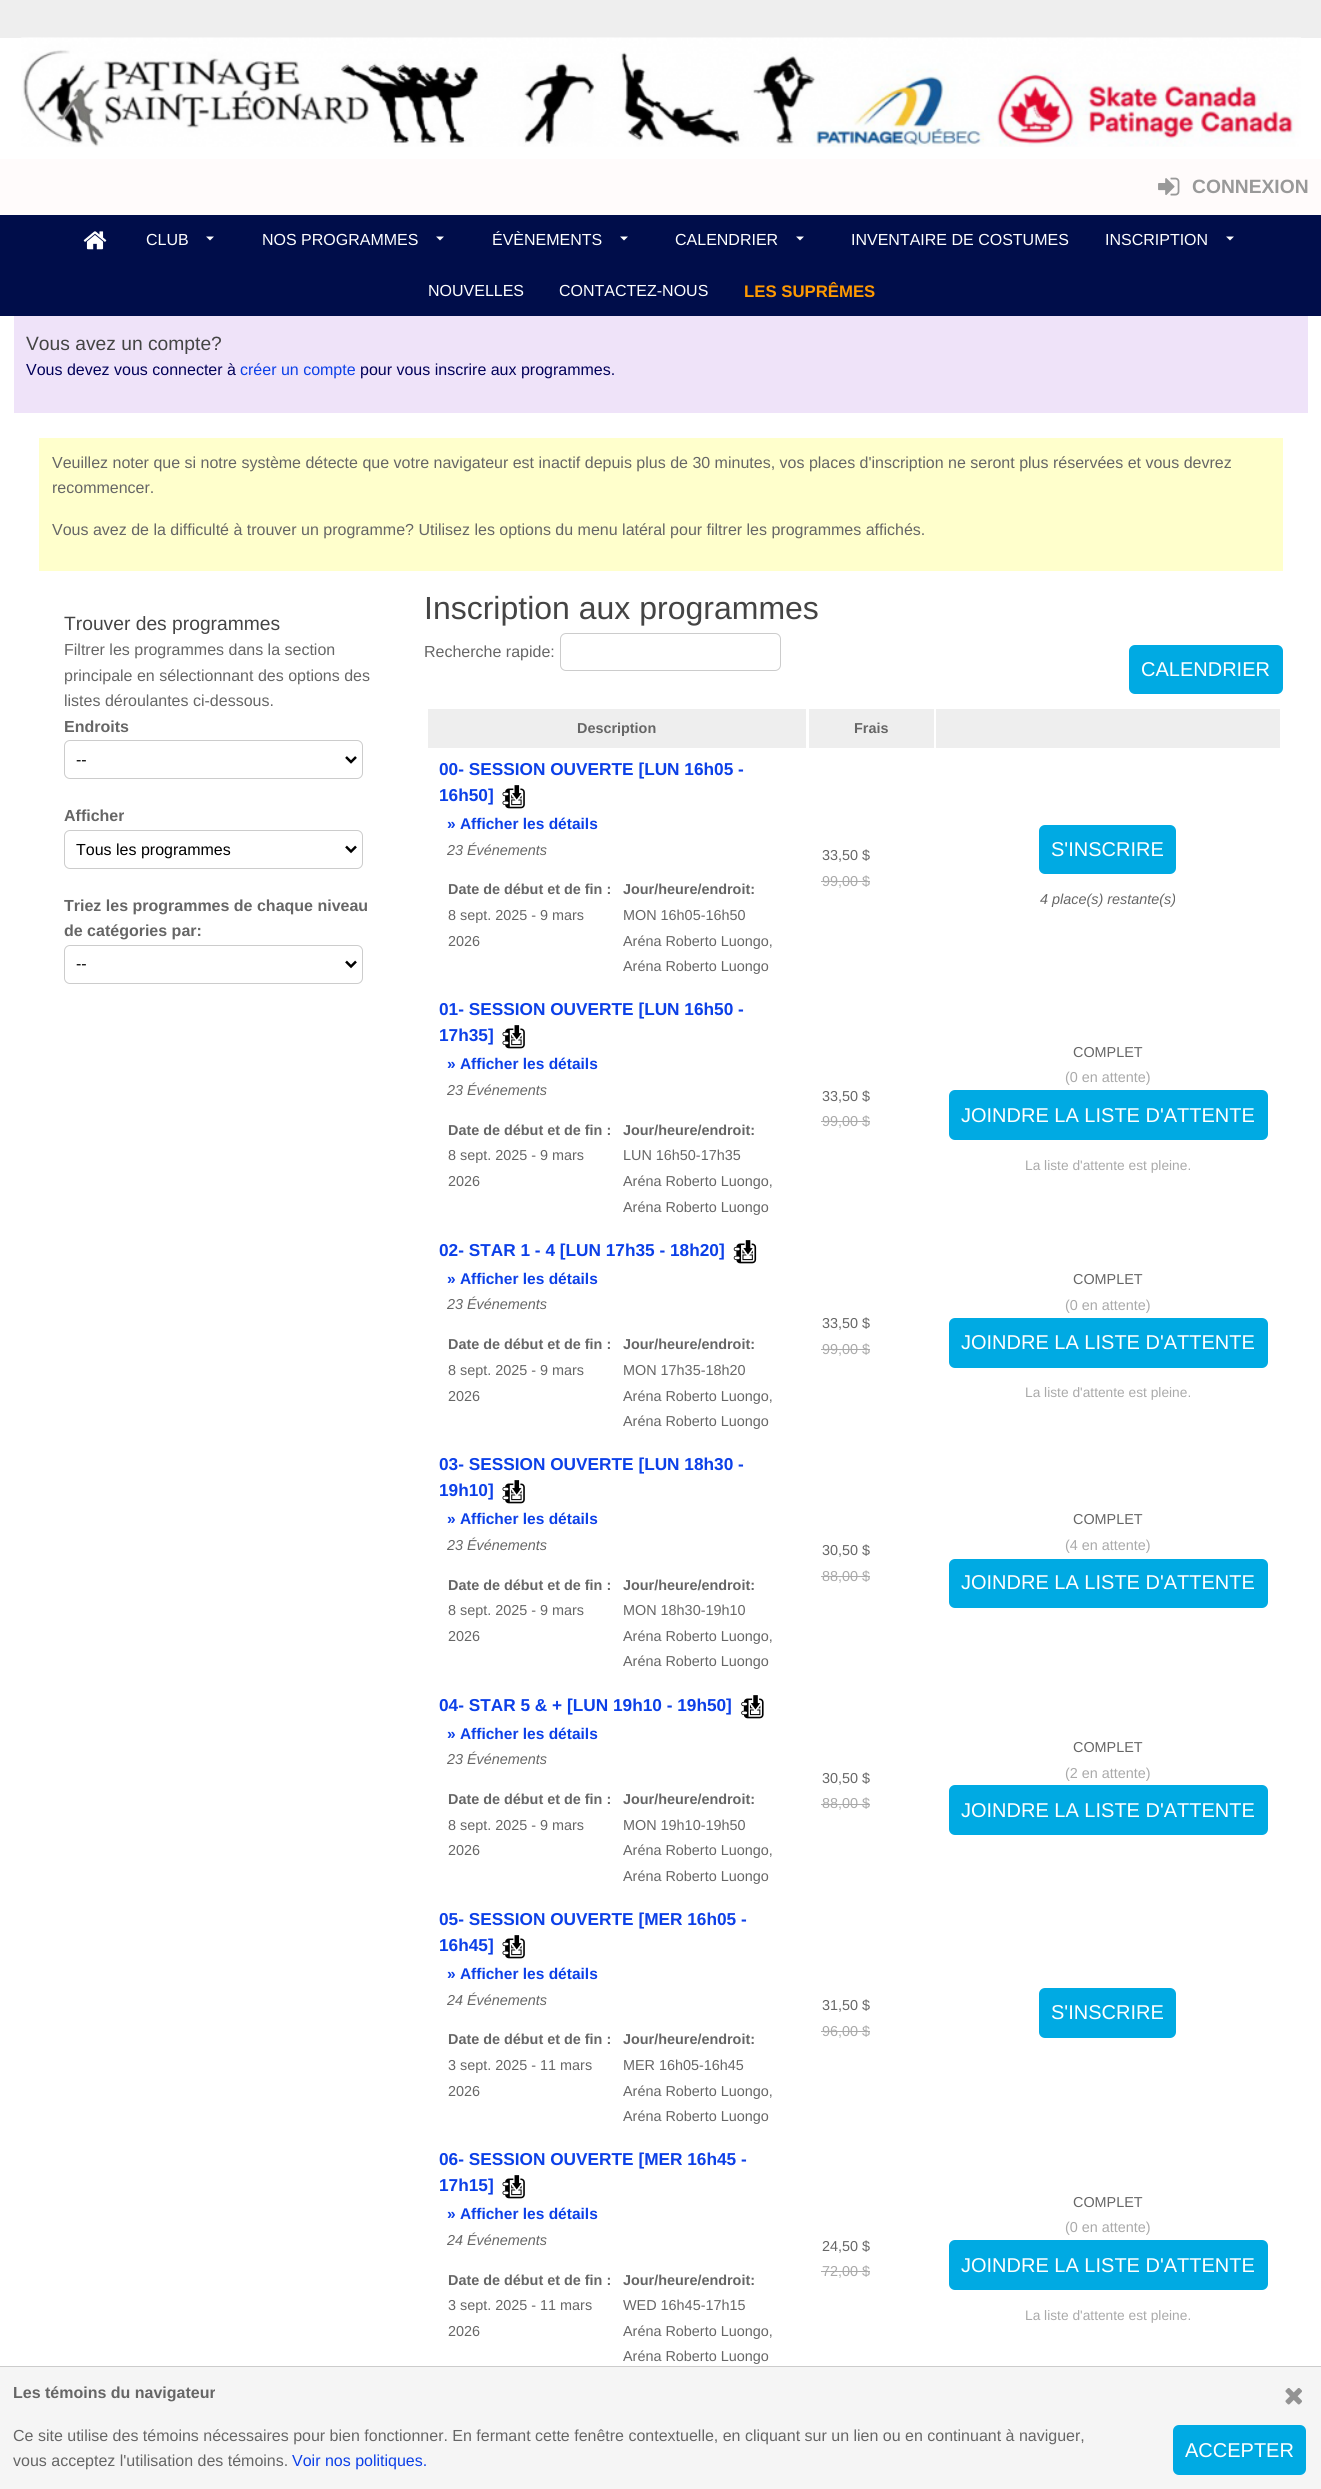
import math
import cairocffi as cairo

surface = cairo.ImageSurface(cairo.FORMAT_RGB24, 1321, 2489)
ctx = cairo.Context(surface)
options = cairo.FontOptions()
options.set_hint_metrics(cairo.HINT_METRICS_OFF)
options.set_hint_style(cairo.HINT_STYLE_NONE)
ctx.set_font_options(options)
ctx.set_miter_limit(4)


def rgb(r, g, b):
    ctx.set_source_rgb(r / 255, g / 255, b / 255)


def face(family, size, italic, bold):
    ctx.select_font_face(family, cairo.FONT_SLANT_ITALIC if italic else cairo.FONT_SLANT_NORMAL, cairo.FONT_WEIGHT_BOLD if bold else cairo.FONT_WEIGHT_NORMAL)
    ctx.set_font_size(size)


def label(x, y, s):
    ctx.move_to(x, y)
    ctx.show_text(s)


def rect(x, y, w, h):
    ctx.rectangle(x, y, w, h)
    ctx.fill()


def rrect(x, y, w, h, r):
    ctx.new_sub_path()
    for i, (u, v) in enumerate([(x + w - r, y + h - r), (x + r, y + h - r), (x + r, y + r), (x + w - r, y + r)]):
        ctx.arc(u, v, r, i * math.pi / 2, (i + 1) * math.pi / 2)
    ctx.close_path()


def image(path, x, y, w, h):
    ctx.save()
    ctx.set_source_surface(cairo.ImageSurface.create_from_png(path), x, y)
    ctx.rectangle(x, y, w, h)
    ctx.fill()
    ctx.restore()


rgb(255, 255, 255)
ctx.paint()
rgb(238, 238, 238)
rect(0, 0, 1321, 38)
image('image0.png', 21, 37, 1280, 110)
rgb(255, 251, 251)
rect(0, 159, 1321, 56)
image('image1.png', 1158, 177, 22, 19)
face('Liberation Sans', 19.25, 0, 1)
rgb(153, 153, 153)
label(1192, 193, 'CONNEXION')
rgb(0, 13, 74)
rect(0, 215, 1321, 101)
image('image2.png', 83, 231, 24, 19)
face('Liberation Sans', 16, 0, 0)
rgb(255, 255, 255)
label(146, 245, 'CLUB')
ctx.new_path()
ctx.move_to(206, 236.5)
ctx.line_to(210, 240.5)
ctx.line_to(214, 236.5)
ctx.close_path()
ctx.fill()
label(262, 245, 'NOS PROGRAMMES')
ctx.new_path()
ctx.move_to(436, 236.5)
ctx.line_to(440, 240.5)
ctx.line_to(444, 236.5)
ctx.close_path()
ctx.fill()
label(492, 245, 'ÉVÈNEMENTS')
ctx.new_path()
ctx.move_to(620, 236.5)
ctx.line_to(624, 240.5)
ctx.line_to(628, 236.5)
ctx.close_path()
ctx.fill()
label(675, 245, 'CALENDRIER')
ctx.new_path()
ctx.move_to(796, 236.5)
ctx.line_to(800, 240.5)
ctx.line_to(804, 236.5)
ctx.close_path()
ctx.fill()
label(851, 245, 'INVENTAIRE DE COSTUMES')
label(1105, 245, 'INSCRIPTION')
ctx.new_path()
ctx.move_to(1226, 236.5)
ctx.line_to(1230, 240.5)
ctx.line_to(1234, 236.5)
ctx.close_path()
ctx.fill()
label(428, 296, 'NOUVELLES')
label(559, 296, 'CONTACTEZ-NOUS')
face('Liberation Sans', 16.75, 0, 1)
rgb(255, 153, 0)
label(744, 297, 'LES SUPRÊMES')
rgb(239, 227, 249)
rect(14, 316, 1294, 97)
face('Liberation Sans', 19.25, 0, 0)
rgb(68, 68, 68)
label(26, 350, 'Vous avez un compte?')
face('Liberation Sans', 16, 0, 0)
rgb(2, 1, 90)
label(26, 375, 'Vous devez vous connecter à')
rgb(12, 64, 232)
label(240, 375, 'créer un compte')
rgb(2, 1, 90)
label(360, 375, 'pour vous inscrire aux programmes.')
rgb(255, 255, 204)
rect(39, 438, 1244, 133)
rgb(102, 102, 102)
label(52, 468, 'Veuillez noter que si notre système détecte que votre navigateur est inactif depuis plus de 30 minutes, vos places d\'inscription ne seront plus réservées et vous devrez')
label(52, 493, 'recommencer.')
label(52, 535, 'Vous avez de la difficulté à trouver un programme? Utilisez les options du menu latéral pour filtrer les programmes affichés.')
face('Liberation Sans', 19.25, 0, 0)
rgb(68, 68, 68)
label(64, 630, 'Trouver des programmes')
face('Liberation Sans', 16, 0, 0)
rgb(102, 102, 102)
label(64, 655, 'Filtrer les programmes dans la section')
label(64, 681, 'principale en sélectionnant des options des')
label(64, 706, 'listes déroulantes ci-dessous.')
face('Liberation Sans', 16, 0, 1)
label(64, 732, 'Endroits')
rrect(64.5, 740.5, 298, 38, 5.5)
rgb(204, 204, 204)
ctx.set_line_width(1)
ctx.stroke()
ctx.new_path()
ctx.move_to(346, 757)
ctx.line_to(351, 762)
ctx.line_to(356, 757)
rgb(0, 0, 0)
ctx.set_line_width(2.5)
ctx.stroke()
face('Liberation Sans', 16, 0, 0)
label(76, 765, '--')
face('Liberation Sans', 16, 0, 1)
rgb(102, 102, 102)
label(64, 821, 'Afficher')
rrect(64.5, 830.5, 298, 38, 5.5)
rgb(204, 204, 204)
ctx.set_line_width(1)
ctx.stroke()
ctx.new_path()
ctx.move_to(346, 846.5)
ctx.line_to(351, 851.5)
ctx.line_to(356, 846.5)
rgb(0, 0, 0)
ctx.set_line_width(2.5)
ctx.stroke()
face('Liberation Sans', 16, 0, 0)
label(76, 855, 'Tous les programmes')
face('Liberation Sans', 16, 0, 1)
rgb(102, 102, 102)
label(64, 911, 'Triez les programmes de chaque niveau')
label(64, 936, 'de catégories par:')
rrect(64.5, 945.5, 298, 38, 5.5)
rgb(204, 204, 204)
ctx.set_line_width(1)
ctx.stroke()
ctx.new_path()
ctx.move_to(346, 961.5)
ctx.line_to(351, 966.5)
ctx.line_to(356, 961.5)
rgb(0, 0, 0)
ctx.set_line_width(2.5)
ctx.stroke()
face('Liberation Sans', 16, 0, 0)
label(76, 969, '--')
face('Liberation Sans', 32, 0, 0)
rgb(68, 68, 68)
label(424, 619, 'Inscription aux programmes')
face('Liberation Sans', 16, 0, 0)
rgb(102, 102, 102)
label(424, 657, 'Recherche rapide:')
rrect(560.5, 633.5, 220, 37, 5.5)
rgb(204, 204, 204)
ctx.set_line_width(1)
ctx.stroke()
rgb(238, 238, 238)
rect(428, 709, 378, 39)
face('Liberation Sans', 14.4, 0, 1)
rgb(102, 102, 102)
label(577, 733, 'Description')
rgb(238, 238, 238)
rect(809, 709, 125, 39)
rgb(102, 102, 102)
label(854, 733, 'Frais')
rgb(238, 238, 238)
rect(936, 709, 344, 39)
face('Liberation Sans', 17.25, 0, 1)
rgb(12, 64, 232)
label(439, 775, '00- SESSION OUVERTE [LUN 16h05 -')
label(439, 801, '16h50]')
image('image3.png', 502, 785, 23, 24)
face('Liberation Sans', 15.5, 0, 1)
label(447, 829, '» Afficher les détails')
face('Liberation Sans', 14.4, 1, 0)
rgb(102, 102, 102)
label(447, 855, '23 Événements')
face('Liberation Sans', 14.4, 0, 1)
label(448, 894, 'Date de début et de fin :')
face('Liberation Sans', 14.4, 0, 0)
label(448, 920, '8 sept. 2025 - 9 mars')
label(448, 946, '2026')
face('Liberation Sans', 14.4, 0, 1)
label(623, 894, 'Jour/heure/endroit:')
face('Liberation Sans', 14.4, 0, 0)
label(623, 920, 'MON 16h05-16h50')
label(623, 946, 'Aréna Roberto Luongo,')
label(623, 971, 'Aréna Roberto Luongo')
label(822, 860, '33,50 $')
rgb(170, 170, 170)
label(822, 886, '99,00 $')
rect(821, 881, 49, 1)
rgb(0, 170, 227)
rrect(1039, 825, 137, 49, 6)
ctx.fill()
face('Liberation Sans', 20, 0, 0)
rgb(255, 255, 255)
label(1051, 856, 'S\'INSCRIRE')
face('Liberation Sans', 14.4, 1, 0)
rgb(102, 102, 102)
label(1040, 904, '4 place(s) restante(s)')
face('Liberation Sans', 17.25, 0, 1)
rgb(12, 64, 232)
label(439, 1015, '01- SESSION OUVERTE [LUN 16h50 -')
label(439, 1041, '17h35]')
image('image3.png', 502, 1025, 23, 24)
face('Liberation Sans', 15.5, 0, 1)
label(447, 1069, '» Afficher les détails')
face('Liberation Sans', 14.4, 1, 0)
rgb(102, 102, 102)
label(447, 1095, '23 Événements')
face('Liberation Sans', 14.4, 0, 1)
label(448, 1135, 'Date de début et de fin :')
face('Liberation Sans', 14.4, 0, 0)
label(448, 1160, '8 sept. 2025 - 9 mars')
label(448, 1186, '2026')
face('Liberation Sans', 14.4, 0, 1)
label(623, 1135, 'Jour/heure/endroit:')
face('Liberation Sans', 14.4, 0, 0)
label(623, 1160, 'LUN 16h50-17h35')
label(623, 1186, 'Aréna Roberto Luongo,')
label(623, 1212, 'Aréna Roberto Luongo')
label(822, 1101, '33,50 $')
rgb(170, 170, 170)
label(822, 1126, '99,00 $')
rect(821, 1121, 49, 1)
rgb(102, 102, 102)
label(1073, 1057, 'COMPLET')
rgb(170, 170, 170)
label(1065, 1082, '(0 en attente)')
rgb(0, 170, 227)
rrect(949, 1090, 319, 50, 6)
ctx.fill()
face('Liberation Sans', 20, 0, 0)
rgb(255, 255, 255)
label(961, 1122, 'JOINDRE LA LISTE D\'ATTENTE')
face('Liberation Sans', 13.75, 0, 0)
rgb(170, 170, 170)
label(1025, 1170, 'La liste d\'attente est pleine.')
face('Liberation Sans', 17.25, 0, 1)
rgb(12, 64, 232)
label(439, 1256, '02- STAR 1 - 4 [LUN 17h35 - 18h20]')
image('image4.png', 733, 1240, 24, 24)
face('Liberation Sans', 15.5, 0, 1)
label(447, 1284, '» Afficher les détails')
face('Liberation Sans', 14.4, 1, 0)
rgb(102, 102, 102)
label(447, 1309, '23 Événements')
face('Liberation Sans', 14.4, 0, 1)
label(448, 1349, 'Date de début et de fin :')
face('Liberation Sans', 14.4, 0, 0)
label(448, 1375, '8 sept. 2025 - 9 mars')
label(448, 1401, '2026')
face('Liberation Sans', 14.4, 0, 1)
label(623, 1349, 'Jour/heure/endroit:')
face('Liberation Sans', 14.4, 0, 0)
label(623, 1375, 'MON 17h35-18h20')
label(623, 1401, 'Aréna Roberto Luongo,')
label(623, 1426, 'Aréna Roberto Luongo')
label(822, 1328, '33,50 $')
rgb(170, 170, 170)
label(822, 1354, '99,00 $')
rect(821, 1349, 49, 1)
rgb(102, 102, 102)
label(1073, 1284, 'COMPLET')
rgb(170, 170, 170)
label(1065, 1310, '(0 en attente)')
rgb(0, 170, 227)
rrect(949, 1318, 319, 50, 6)
ctx.fill()
face('Liberation Sans', 20, 0, 0)
rgb(255, 255, 255)
label(961, 1349, 'JOINDRE LA LISTE D\'ATTENTE')
face('Liberation Sans', 13.75, 0, 0)
rgb(170, 170, 170)
label(1025, 1397, 'La liste d\'attente est pleine.')
face('Liberation Sans', 17.25, 0, 1)
rgb(12, 64, 232)
label(439, 1470, '03- SESSION OUVERTE [LUN 18h30 -')
label(439, 1496, '19h10]')
image('image3.png', 502, 1480, 23, 24)
face('Liberation Sans', 15.5, 0, 1)
label(447, 1524, '» Afficher les détails')
face('Liberation Sans', 14.4, 1, 0)
rgb(102, 102, 102)
label(447, 1550, '23 Événements')
face('Liberation Sans', 14.4, 0, 1)
label(448, 1590, 'Date de début et de fin :')
face('Liberation Sans', 14.4, 0, 0)
label(448, 1615, '8 sept. 2025 - 9 mars')
label(448, 1641, '2026')
face('Liberation Sans', 14.4, 0, 1)
label(623, 1590, 'Jour/heure/endroit:')
face('Liberation Sans', 14.4, 0, 0)
label(623, 1615, 'MON 18h30-19h10')
label(623, 1641, 'Aréna Roberto Luongo,')
label(623, 1666, 'Aréna Roberto Luongo')
label(822, 1555, '30,50 $')
rgb(170, 170, 170)
label(822, 1581, '88,00 $')
rect(821, 1576, 49, 1)
rgb(102, 102, 102)
label(1073, 1524, 'COMPLET')
rgb(170, 170, 170)
label(1065, 1550, '(4 en attente)')
rgb(0, 170, 227)
rrect(949, 1559, 319, 49, 6)
ctx.fill()
face('Liberation Sans', 20, 0, 0)
rgb(255, 255, 255)
label(961, 1589, 'JOINDRE LA LISTE D\'ATTENTE')
face('Liberation Sans', 17.25, 0, 1)
rgb(12, 64, 232)
label(439, 1711, '04- STAR 5 & + [LUN 19h10 - 19h50]')
image('image5.png', 741, 1695, 23, 24)
face('Liberation Sans', 15.5, 0, 1)
label(447, 1739, '» Afficher les détails')
face('Liberation Sans', 14.4, 1, 0)
rgb(102, 102, 102)
label(447, 1764, '23 Événements')
face('Liberation Sans', 14.4, 0, 1)
label(448, 1804, 'Date de début et de fin :')
face('Liberation Sans', 14.4, 0, 0)
label(448, 1830, '8 sept. 2025 - 9 mars')
label(448, 1855, '2026')
face('Liberation Sans', 14.4, 0, 1)
label(623, 1804, 'Jour/heure/endroit:')
face('Liberation Sans', 14.4, 0, 0)
label(623, 1830, 'MON 19h10-19h50')
label(623, 1855, 'Aréna Roberto Luongo,')
label(623, 1881, 'Aréna Roberto Luongo')
label(822, 1783, '30,50 $')
rgb(170, 170, 170)
label(822, 1808, '88,00 $')
rect(821, 1804, 49, 1)
rgb(102, 102, 102)
label(1073, 1752, 'COMPLET')
rgb(170, 170, 170)
label(1065, 1778, '(2 en attente)')
rgb(0, 170, 227)
rrect(949, 1785, 319, 50, 6)
ctx.fill()
face('Liberation Sans', 20, 0, 0)
rgb(255, 255, 255)
label(961, 1817, 'JOINDRE LA LISTE D\'ATTENTE')
face('Liberation Sans', 17.25, 0, 1)
rgb(12, 64, 232)
label(439, 1925, '05- SESSION OUVERTE [MER 16h05 -')
label(439, 1951, '16h45]')
image('image3.png', 502, 1935, 23, 24)
face('Liberation Sans', 15.5, 0, 1)
label(447, 1979, '» Afficher les détails')
face('Liberation Sans', 14.4, 1, 0)
rgb(102, 102, 102)
label(447, 2005, '24 Événements')
face('Liberation Sans', 14.4, 0, 1)
label(448, 2044, 'Date de début et de fin :')
face('Liberation Sans', 14.4, 0, 0)
label(448, 2070, '3 sept. 2025 - 11 mars')
label(448, 2096, '2026')
face('Liberation Sans', 14.4, 0, 1)
label(623, 2044, 'Jour/heure/endroit:')
face('Liberation Sans', 14.4, 0, 0)
label(623, 2070, 'MER 16h05-16h45')
label(623, 2096, 'Aréna Roberto Luongo,')
label(623, 2121, 'Aréna Roberto Luongo')
label(822, 2010, '31,50 $')
rgb(170, 170, 170)
label(822, 2036, '96,00 $')
rect(821, 2031, 49, 1)
rgb(0, 170, 227)
rrect(1039, 1988, 137, 50, 6)
ctx.fill()
face('Liberation Sans', 20, 0, 0)
rgb(255, 255, 255)
label(1051, 2019, 'S\'INSCRIRE')
face('Liberation Sans', 17.25, 0, 1)
rgb(12, 64, 232)
label(439, 2165, '06- SESSION OUVERTE [MER 16h45 -')
label(439, 2191, '17h15]')
image('image3.png', 502, 2175, 23, 24)
face('Liberation Sans', 15.5, 0, 1)
label(447, 2219, '» Afficher les détails')
face('Liberation Sans', 14.4, 1, 0)
rgb(102, 102, 102)
label(447, 2245, '24 Événements')
face('Liberation Sans', 14.4, 0, 1)
label(448, 2285, 'Date de début et de fin :')
face('Liberation Sans', 14.4, 0, 0)
label(448, 2310, '3 sept. 2025 - 11 mars')
label(448, 2336, '2026')
face('Liberation Sans', 14.4, 0, 1)
label(623, 2285, 'Jour/heure/endroit:')
face('Liberation Sans', 14.4, 0, 0)
label(623, 2310, 'WED 16h45-17h15')
label(623, 2336, 'Aréna Roberto Luongo,')
label(623, 2361, 'Aréna Roberto Luongo')
label(822, 2251, '24,50 $')
rgb(170, 170, 170)
label(822, 2276, '72,00 $')
rect(821, 2271, 49, 1)
rgb(102, 102, 102)
label(1073, 2207, 'COMPLET')
rgb(170, 170, 170)
label(1065, 2232, '(0 en attente)')
rgb(0, 170, 227)
rrect(949, 2240, 319, 50, 6)
ctx.fill()
face('Liberation Sans', 20, 0, 0)
rgb(255, 255, 255)
label(961, 2272, 'JOINDRE LA LISTE D\'ATTENTE')
face('Liberation Sans', 13.75, 0, 0)
rgb(170, 170, 170)
label(1025, 2320, 'La liste d\'attente est pleine.')
rgb(0, 170, 227)
rrect(1129, 645, 154, 49, 6)
ctx.fill()
face('Liberation Sans', 20, 0, 0)
rgb(255, 255, 255)
label(1141, 676, 'CALENDRIER')
rgb(245, 245, 245)
rect(0, 2367, 1321, 122)
rgb(204, 204, 204)
rect(0, 2366, 1321, 1)
face('Liberation Sans', 16, 0, 1)
rgb(102, 102, 102)
label(13, 2398, 'Les témoins du navigateur')
image('image6.png', 1285, 2388, 17, 17)
face('Liberation Sans', 16, 0, 0)
label(13, 2441, 'Ce site utilise des témoins nécessaires pour bien fonctionner. En fermant cette fenêtre contextuelle, en cliquant sur un lien ou en continuant à naviguer,')
label(13, 2466, 'vous acceptez l\'utilisation des témoins.')
rgb(12, 64, 232)
label(292, 2466, 'Voir nos politiques.')
rgb(0, 170, 227)
rrect(1173, 2425, 133, 50, 6)
ctx.fill()
face('Liberation Sans', 20, 0, 0)
rgb(255, 255, 255)
label(1185, 2457, 'ACCEPTER')
surface.write_to_png('render.png')
